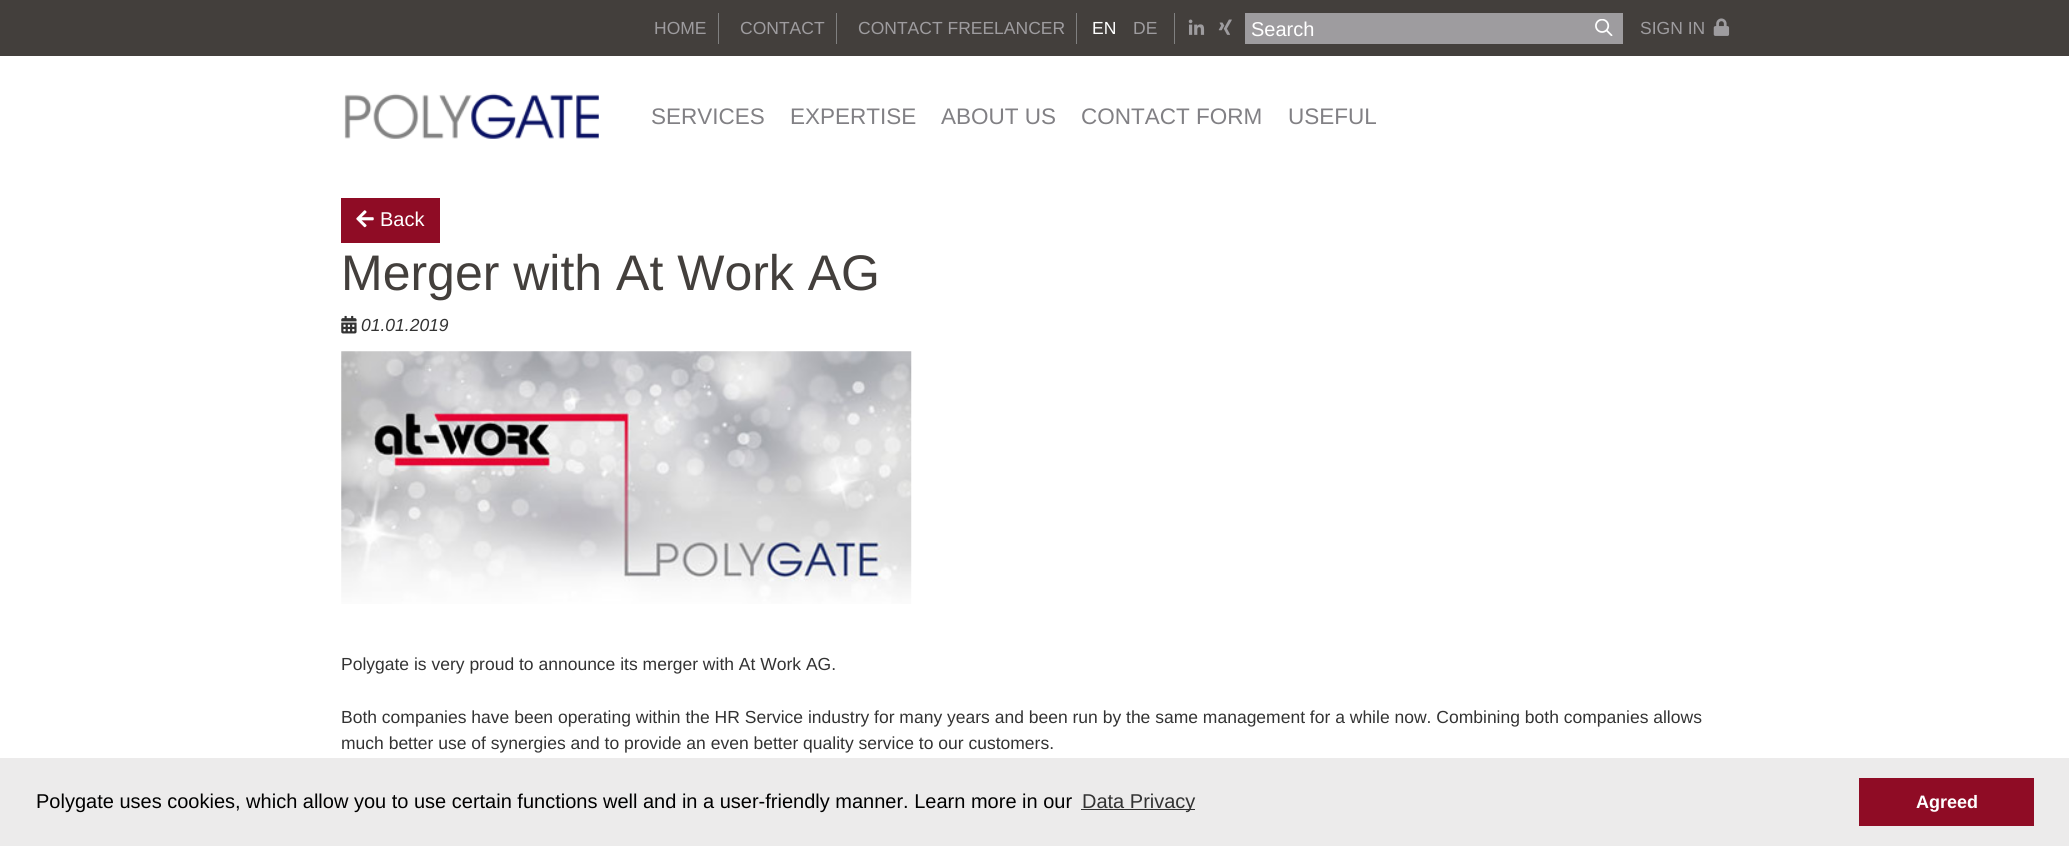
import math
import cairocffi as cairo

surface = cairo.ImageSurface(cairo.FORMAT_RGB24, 2069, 846)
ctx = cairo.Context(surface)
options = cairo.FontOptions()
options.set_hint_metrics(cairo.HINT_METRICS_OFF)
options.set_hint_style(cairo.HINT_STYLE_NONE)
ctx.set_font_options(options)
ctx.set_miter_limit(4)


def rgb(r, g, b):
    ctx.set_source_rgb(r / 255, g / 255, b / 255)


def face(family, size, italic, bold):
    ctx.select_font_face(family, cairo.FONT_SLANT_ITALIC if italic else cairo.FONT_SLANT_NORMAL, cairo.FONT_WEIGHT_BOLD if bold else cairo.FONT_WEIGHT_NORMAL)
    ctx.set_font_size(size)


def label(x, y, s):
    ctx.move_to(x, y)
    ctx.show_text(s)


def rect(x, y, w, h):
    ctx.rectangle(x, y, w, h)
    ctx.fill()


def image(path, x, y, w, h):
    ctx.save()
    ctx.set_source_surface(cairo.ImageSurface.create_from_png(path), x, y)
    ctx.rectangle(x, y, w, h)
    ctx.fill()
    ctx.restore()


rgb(255, 255, 255)
ctx.paint()
rgb(67, 63, 60)
rect(0, 0, 2069, 56)
rgb(128, 128, 128)
rect(718, 13, 1, 31)
face('Liberation Sans', 17.5, 0, 0)
rgb(158, 156, 159)
label(654, 34, 'HOME')
rgb(128, 128, 128)
rect(836, 13, 1, 31)
rgb(158, 156, 159)
label(740, 34, 'CONTACT')
rgb(128, 128, 128)
rect(1076, 13, 1, 31)
rgb(158, 156, 159)
label(858, 34, 'CONTACT FREELANCER')
rgb(255, 255, 255)
label(1092, 34, 'EN')
rgb(158, 156, 159)
label(1133, 34, 'DE')
rgb(128, 128, 128)
rect(1174, 13, 1, 31)
image('image0.png', 1188, 19, 17, 16)
image('image1.png', 1218, 19, 14, 16)
rgb(158, 156, 159)
rect(1245, 13, 378, 31)
face('Liberation Sans', 20, 0, 0)
rgb(255, 255, 255)
label(1251, 36, 'Search')
image('image2.png', 1595, 19, 18, 17)
face('Liberation Sans', 17.5, 0, 0)
rgb(158, 156, 159)
label(1640, 34, 'SIGN IN')
image('image3.png', 1713, 18, 17, 18)
image('image4.png', 344, 93, 255, 46)
face('Liberation Sans', 22.5, 0, 0)
rgb(129, 128, 132)
label(651, 124, 'SERVICES')
label(790, 124, 'EXPERTISE')
label(941, 124, 'ABOUT US')
label(1081, 124, 'CONTACT FORM')
label(1288, 124, 'USEFUL')
rgb(143, 12, 37)
rect(341, 198, 99, 45)
image('image5.png', 356, 210, 18, 18)
face('Liberation Sans', 20, 0, 0)
rgb(255, 255, 255)
label(380, 226, 'Back')
face('Liberation Sans', 50, 0, 0)
rgb(67, 63, 60)
label(341, 290, 'Merger with At Work AG')
image('image6.png', 341, 315, 16, 19)
face('Liberation Sans', 17.5, 1, 0)
rgb(51, 51, 51)
label(361, 331, '01.01.2019')
image('image7.png', 341, 351, 571, 253)
face('Liberation Sans', 17.5, 0, 0)
label(341, 670, 'Polygate is very proud to announce its merger with At Work AG.')
label(341, 723, 'Both companies have been operating within the HR Service industry for many years and been run by the same management for a while now. Combining both companies allows')
label(341, 749, 'much better use of synergies and to provide an even better quality service to our customers.')
rgb(236, 235, 235)
rect(0, 758, 2069, 88)
face('Liberation Sans', 20, 0, 0)
rgb(0, 0, 0)
label(36, 808, 'Polygate uses cookies, which allow you to use certain functions well and in a user-friendly manner. Learn more in our')
rgb(47, 47, 47)
rect(1081, 809, 114, 1)
rgb(51, 51, 51)
label(1082, 808, 'Data Privacy')
rgb(143, 12, 37)
rect(1859, 778, 175, 48)
face('Liberation Sans', 18, 0, 1)
rgb(255, 255, 255)
label(1916, 808, 'Agreed')
surface.write_to_png('render.png')
